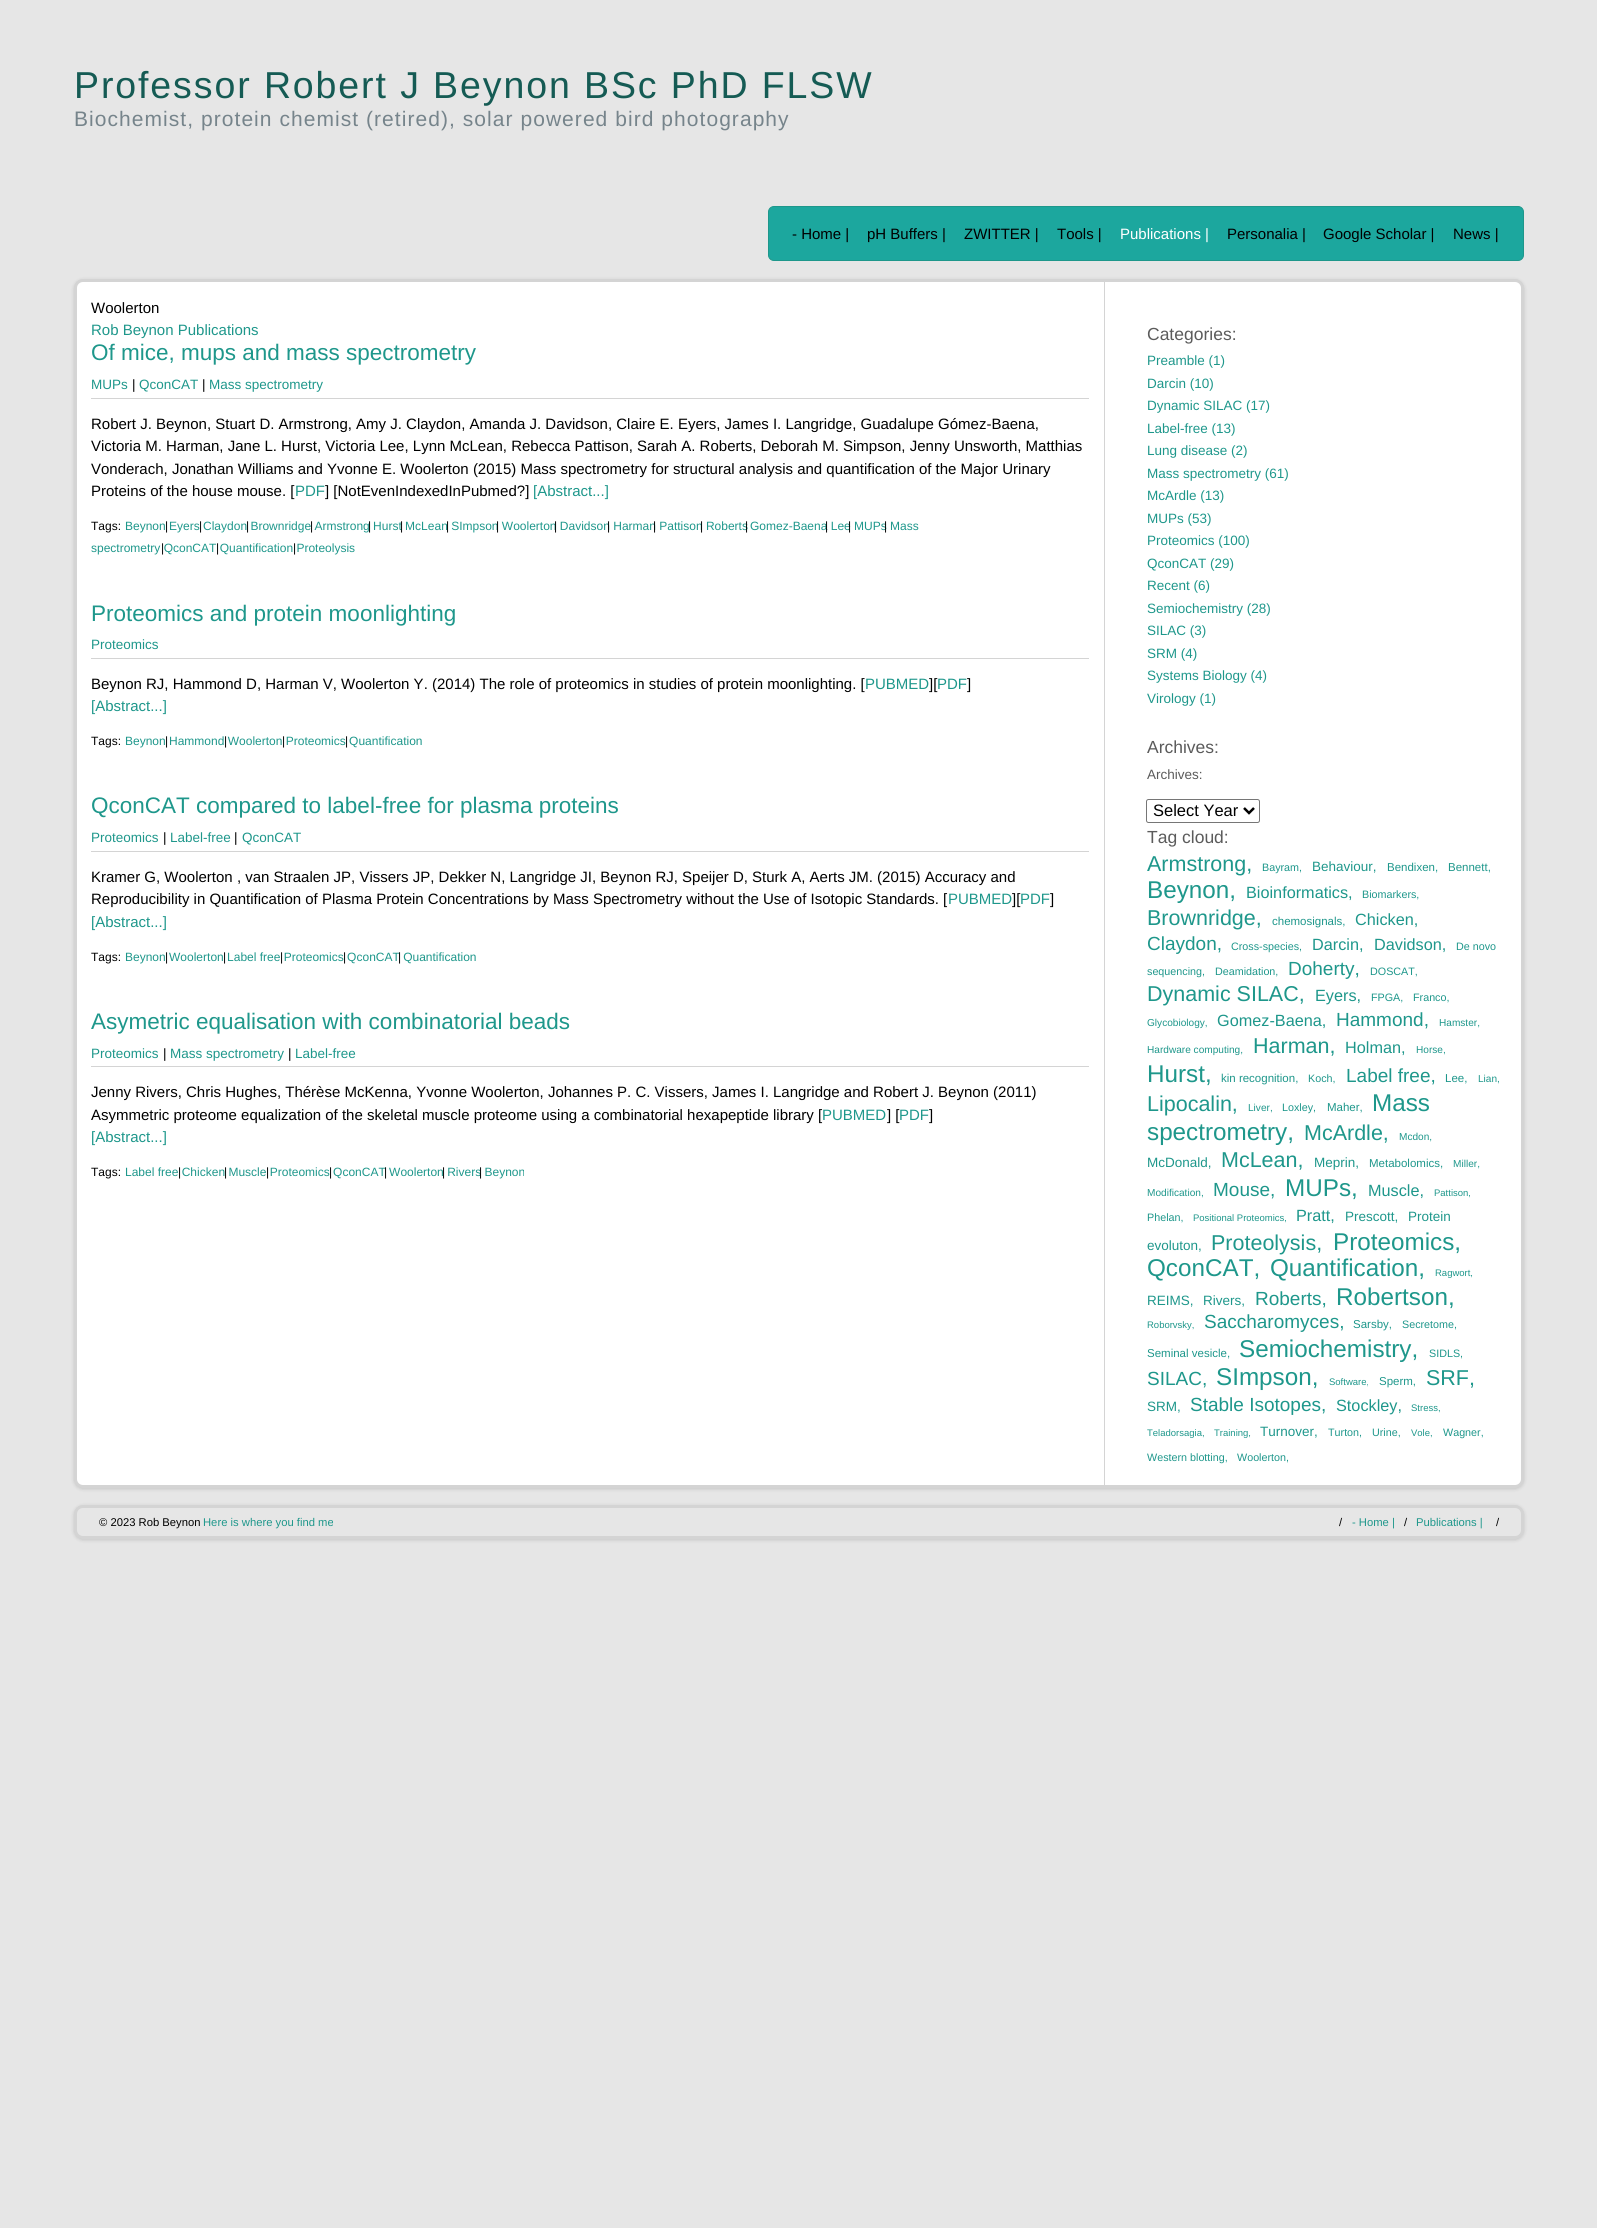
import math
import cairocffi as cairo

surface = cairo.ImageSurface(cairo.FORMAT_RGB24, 1597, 2228)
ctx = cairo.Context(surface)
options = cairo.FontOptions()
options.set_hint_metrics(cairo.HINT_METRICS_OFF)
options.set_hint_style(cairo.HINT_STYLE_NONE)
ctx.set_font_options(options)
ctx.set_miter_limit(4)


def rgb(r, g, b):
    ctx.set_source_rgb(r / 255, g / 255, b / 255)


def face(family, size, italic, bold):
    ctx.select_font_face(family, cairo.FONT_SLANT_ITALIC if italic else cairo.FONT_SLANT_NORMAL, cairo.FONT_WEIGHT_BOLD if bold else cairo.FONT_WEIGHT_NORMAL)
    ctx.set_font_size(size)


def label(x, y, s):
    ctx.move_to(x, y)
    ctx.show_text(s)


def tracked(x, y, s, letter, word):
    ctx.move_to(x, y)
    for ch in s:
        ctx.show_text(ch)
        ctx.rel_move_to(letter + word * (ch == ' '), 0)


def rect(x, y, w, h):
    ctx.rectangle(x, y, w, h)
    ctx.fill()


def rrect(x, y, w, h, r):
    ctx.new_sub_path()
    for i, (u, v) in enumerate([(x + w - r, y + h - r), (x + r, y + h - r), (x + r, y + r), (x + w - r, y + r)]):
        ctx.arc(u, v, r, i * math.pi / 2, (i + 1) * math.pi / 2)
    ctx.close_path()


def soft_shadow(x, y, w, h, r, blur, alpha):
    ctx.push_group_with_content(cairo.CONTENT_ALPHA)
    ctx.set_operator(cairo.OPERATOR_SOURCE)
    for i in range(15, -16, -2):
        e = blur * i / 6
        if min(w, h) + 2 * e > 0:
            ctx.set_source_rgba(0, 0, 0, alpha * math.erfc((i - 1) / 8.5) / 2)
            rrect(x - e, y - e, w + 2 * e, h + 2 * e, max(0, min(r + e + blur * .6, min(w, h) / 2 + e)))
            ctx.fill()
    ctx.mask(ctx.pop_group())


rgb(230, 230, 230)
ctx.paint()
face('Liberation Sans', 37.5, 0, 0)
rgb(21, 91, 84)
tracked(74, 98, 'Professor Robert J Beynon BSc PhD FLSW', 1.9, 0)
face('Liberation Sans', 21, 0, 0)
rgb(118, 132, 139)
tracked(74, 126, 'Biochemist, protein chemist (retired), solar powered bird photography', 1.05, 0)
rgb(28, 167, 158)
rrect(768.5, 206.5, 755, 54, 5.5)
ctx.fill_preserve()
rgb(30, 151, 139)
ctx.set_line_width(1)
ctx.stroke()
face('Liberation Sans', 15, 0, 0)
rgb(0, 0, 0)
label(792, 239, '- Home |')
label(867, 239, 'pH Buffers |')
label(964, 239, 'ZWITTER |')
label(1057, 239, 'Tools |')
rgb(255, 255, 255)
label(1120, 239, 'Publications |')
rgb(0, 0, 0)
label(1227, 239, 'Personalia |')
label(1323, 239, 'Google Scholar |')
label(1453, 239, 'News |')
rgb(0, 0, 0)
soft_shadow(74, 280, 1450, 1209, 9, 2, 0.15)
rgb(255, 255, 255)
rrect(75.5, 280.5, 1447, 1206, 7.5)
ctx.fill_preserve()
rgb(212, 212, 212)
ctx.set_line_width(3)
ctx.stroke()
rect(1104, 281, 1, 1204)
rgb(0, 0, 0)
label(91, 313, 'Woolerton')
rgb(30, 151, 139)
label(91, 335, 'Rob Beynon Publications')
face('Liberation Sans', 22.5, 0, 0)
label(91, 360, 'Of mice, mups and mass spectrometry')
rgb(212, 212, 212)
rect(91, 398, 998, 1)
face('Liberation Sans', 13.5, 0, 0)
rgb(30, 151, 139)
label(91, 389, 'MUPs')
rgb(0, 0, 0)
label(132, 389, '|')
rgb(30, 151, 139)
label(139, 389, 'QconCAT')
rgb(0, 0, 0)
label(202, 389, '|')
rgb(30, 151, 139)
label(209, 389, 'Mass spectrometry')
face('Liberation Sans', 15, 0, 0)
rgb(0, 0, 0)
label(91, 429, 'Robert J. Beynon, Stuart D. Armstrong, Amy J. Claydon, Amanda J. Davidson, Claire E. Eyers, James I. Langridge, Guadalupe Gómez-Baena,')
label(91, 451, 'Victoria M. Harman, Jane L. Hurst, Victoria Lee, Lynn McLean, Rebecca Pattison, Sarah A. Roberts, Deborah M. Simpson, Jenny Unsworth, Matthias')
label(91, 474, 'Vonderach, Jonathan Williams and Yvonne E. Woolerton (2015) Mass spectrometry for structural analysis and quantification of the Major Urinary')
label(91, 496, 'Proteins of the house mouse. [')
rgb(30, 151, 139)
label(295, 496, 'PDF')
rgb(0, 0, 0)
label(325, 496, '] [NotEvenIndexedInPubmed?]')
rgb(30, 151, 139)
label(533, 496, '[Abstract...]')
face('Liberation Sans', 12, 0, 0)
rgb(0, 0, 0)
label(91, 530, 'Tags:')
rgb(30, 151, 139)
label(125, 530, 'Beynon Eyers Claydon Brownridge Armstrong Hurst McLean SImpson Woolerton Davidson Harman Pattison Roberts')
label(750, 530, 'Gomez-Baena Lee MUPs Mass')
rgb(0, 0, 0)
label(165, 530, '|')
label(199, 530, '|')
label(246, 530, '|')
label(310, 530, '|')
label(368, 530, '|')
label(400, 530, '|')
label(446, 530, '|')
label(496, 530, '|')
label(554, 530, '|')
label(607, 530, '|')
label(653, 530, '|')
label(700, 530, '|')
label(745, 530, '|')
label(825, 530, '|')
label(848, 530, '|')
label(884, 530, '|')
rgb(30, 151, 139)
label(91, 552, 'spectrometry QconCAT Quantification Proteolysis')
rgb(0, 0, 0)
label(161, 552, '|')
label(216, 552, '|')
label(293, 552, '|')
face('Liberation Sans', 22.5, 0, 0)
rgb(30, 151, 139)
label(91, 621, 'Proteomics and protein moonlighting')
rgb(212, 212, 212)
rect(91, 658, 998, 1)
face('Liberation Sans', 13.5, 0, 0)
rgb(30, 151, 139)
label(91, 649, 'Proteomics')
face('Liberation Sans', 15, 0, 0)
rgb(0, 0, 0)
label(91, 689, 'Beynon RJ, Hammond D, Harman V, Woolerton Y. (2014) The role of proteomics in studies of protein moonlighting. [')
rgb(30, 151, 139)
label(865, 689, 'PUBMED')
rgb(0, 0, 0)
label(929, 689, '][')
rgb(30, 151, 139)
label(937, 689, 'PDF')
rgb(0, 0, 0)
label(967, 689, ']')
rgb(30, 151, 139)
label(91, 711, '[Abstract...]')
face('Liberation Sans', 12, 0, 0)
rgb(0, 0, 0)
label(91, 745, 'Tags:')
rgb(30, 151, 139)
label(125, 745, 'Beynon Hammond Woolerton Proteomics Quantification')
rgb(0, 0, 0)
label(165, 745, '|')
label(224, 745, '|')
label(282, 745, '|')
label(345, 745, '|')
face('Liberation Sans', 22.5, 0, 0)
rgb(30, 151, 139)
label(91, 813, 'QconCAT compared to label-free for plasma proteins')
rgb(212, 212, 212)
rect(91, 851, 998, 1)
face('Liberation Sans', 13.5, 0, 0)
rgb(30, 151, 139)
label(91, 842, 'Proteomics')
rgb(0, 0, 0)
label(163, 842, '|')
rgb(30, 151, 139)
label(170, 842, 'Label-free')
rgb(0, 0, 0)
label(234, 842, '|')
rgb(30, 151, 139)
label(242, 842, 'QconCAT')
face('Liberation Sans', 15, 0, 0)
rgb(0, 0, 0)
label(91, 882, 'Kramer G, Woolerton , van Straalen JP, Vissers JP, Dekker N, Langridge JI, Beynon RJ, Speijer D, Sturk A, Aerts JM. (2015) Accuracy and')
label(91, 904, 'Reproducibility in Quantification of Plasma Protein Concentrations by Mass Spectrometry without the Use of Isotopic Standards. [')
rgb(30, 151, 139)
label(948, 904, 'PUBMED')
rgb(0, 0, 0)
label(1012, 904, '][')
rgb(30, 151, 139)
label(1020, 904, 'PDF')
rgb(0, 0, 0)
label(1050, 904, ']')
rgb(30, 151, 139)
label(91, 927, '[Abstract...]')
face('Liberation Sans', 12, 0, 0)
rgb(0, 0, 0)
label(91, 961, 'Tags:')
rgb(30, 151, 139)
label(125, 961, 'Beynon Woolerton Label free Proteomics QconCAT Quantification')
rgb(0, 0, 0)
label(165, 961, '|')
label(223, 961, '|')
label(280, 961, '|')
label(343, 961, '|')
label(398, 961, '|')
face('Liberation Sans', 22.5, 0, 0)
rgb(30, 151, 139)
label(91, 1029, 'Asymetric equalisation with combinatorial beads')
rgb(212, 212, 212)
rect(91, 1066, 998, 1)
face('Liberation Sans', 13.5, 0, 0)
rgb(30, 151, 139)
label(91, 1058, 'Proteomics')
rgb(0, 0, 0)
label(163, 1058, '|')
rgb(30, 151, 139)
label(170, 1058, 'Mass spectrometry')
rgb(0, 0, 0)
label(288, 1058, '|')
rgb(30, 151, 139)
label(295, 1058, 'Label-free')
face('Liberation Sans', 15, 0, 0)
rgb(0, 0, 0)
label(91, 1097, 'Jenny Rivers, Chris Hughes, Thérèse McKenna, Yvonne Woolerton, Johannes P. C. Vissers, James I. Langridge and Robert J. Beynon (2011)')
label(91, 1120, 'Asymmetric proteome equalization of the skeletal muscle proteome using a combinatorial hexapeptide library [')
rgb(30, 151, 139)
label(822, 1120, 'PUBMED')
rgb(0, 0, 0)
label(887, 1120, '] [')
rgb(30, 151, 139)
label(899, 1120, 'PDF')
rgb(0, 0, 0)
label(929, 1120, ']')
rgb(30, 151, 139)
label(91, 1142, '[Abstract...]')
face('Liberation Sans', 12, 0, 0)
rgb(0, 0, 0)
label(91, 1176, 'Tags:')
rgb(30, 151, 139)
label(125, 1176, 'Label free Chicken Muscle Proteomics QconCAT Woolerton Rivers Beynon')
rgb(0, 0, 0)
label(178, 1176, '|')
label(224, 1176, '|')
label(266, 1176, '|')
label(329, 1176, '|')
label(384, 1176, '|')
label(442, 1176, '|')
label(479, 1176, '|')
face('Liberation Sans', 17.5, 0, 0)
rgb(91, 91, 91)
label(1147, 340, 'Categories:')
face('Liberation Sans', 13.5, 0, 0)
rgb(30, 151, 139)
label(1147, 365, 'Preamble (1)')
label(1147, 388, 'Darcin (10)')
label(1147, 410, 'Dynamic SILAC (17)')
label(1147, 433, 'Label-free (13)')
label(1147, 455, 'Lung disease (2)')
label(1147, 478, 'Mass spectrometry (61)')
label(1147, 500, 'McArdle (13)')
label(1147, 523, 'MUPs (53)')
label(1147, 545, 'Proteomics (100)')
label(1147, 568, 'QconCAT (29)')
label(1147, 590, 'Recent (6)')
label(1147, 613, 'Semiochemistry (28)')
label(1147, 635, 'SILAC (3)')
label(1147, 658, 'SRM (4)')
label(1147, 680, 'Systems Biology (4)')
label(1147, 703, 'Virology (1)')
face('Liberation Sans', 17.5, 0, 0)
rgb(91, 91, 91)
label(1147, 753, 'Archives:')
face('Liberation Sans', 13.5, 0, 0)
label(1147, 779, 'Archives:')
rrect(1146.5, 799.5, 113, 23, 2)
rgb(118, 118, 118)
ctx.set_line_width(1)
ctx.stroke()
ctx.new_path()
ctx.move_to(1244, 808)
ctx.line_to(1249, 813)
ctx.line_to(1254, 808)
rgb(0, 0, 0)
ctx.set_line_width(2.5)
ctx.stroke()
face('Liberation Sans', 16.5, 0, 0)
label(1153, 816, 'Select Year')
face('Liberation Sans', 17.5, 0, 0)
rgb(91, 91, 91)
label(1147, 843, 'Tag cloud:')
face('Liberation Sans', 21.5, 0, 0)
rgb(30, 151, 139)
label(1147, 871, 'Armstrong,')
face('Liberation Sans', 10.75, 0, 0)
label(1262, 871, 'Bayram,')
face('Liberation Sans', 13.5, 0, 0)
label(1312, 871, 'Behaviour,')
face('Liberation Sans', 11.5, 0, 0)
label(1387, 871, 'Bendixen,')
label(1448, 871, 'Bennett,')
face('Liberation Sans', 24.25, 0, 0)
label(1147, 898, 'Beynon,')
face('Liberation Sans', 16.25, 0, 0)
label(1246, 898, 'Bioinformatics,')
face('Liberation Sans', 10.75, 0, 0)
label(1362, 898, 'Biomarkers,')
face('Liberation Sans', 21.5, 0, 0)
label(1147, 925, 'Brownridge,')
face('Liberation Sans', 11.5, 0, 0)
label(1272, 925, 'chemosignals,')
face('Liberation Sans', 16.25, 0, 0)
label(1355, 925, 'Chicken,')
face('Liberation Sans', 19, 0, 0)
label(1147, 950, 'Claydon,')
face('Liberation Sans', 10.75, 0, 0)
label(1231, 950, 'Cross-species,')
face('Liberation Sans', 16.25, 0, 0)
label(1312, 950, 'Darcin,')
label(1374, 950, 'Davidson,')
face('Liberation Sans', 10.75, 0, 0)
label(1456, 950, 'De novo')
label(1147, 975, 'sequencing,')
label(1215, 975, 'Deamidation,')
face('Liberation Sans', 19, 0, 0)
label(1288, 975, 'Doherty,')
face('Liberation Sans', 10.75, 0, 0)
label(1370, 975, 'DOSCAT,')
face('Liberation Sans', 21.5, 0, 0)
label(1147, 1001, 'Dynamic SILAC,')
face('Liberation Sans', 16.25, 0, 0)
label(1315, 1001, 'Eyers,')
face('Liberation Sans', 10.75, 0, 0)
label(1371, 1001, 'FPGA,')
label(1413, 1001, 'Franco,')
face('Liberation Sans', 10.1, 0, 0)
label(1147, 1026, 'Glycobiology,')
face('Liberation Sans', 16.25, 0, 0)
label(1217, 1026, 'Gomez-Baena,')
face('Liberation Sans', 19, 0, 0)
label(1336, 1026, 'Hammond,')
face('Liberation Sans', 10.1, 0, 0)
label(1439, 1026, 'Hamster,')
label(1147, 1053, 'Hardware computing,')
face('Liberation Sans', 21.5, 0, 0)
label(1253, 1053, 'Harman,')
face('Liberation Sans', 16.25, 0, 0)
label(1345, 1053, 'Holman,')
face('Liberation Sans', 10.1, 0, 0)
label(1416, 1053, 'Horse,')
face('Liberation Sans', 24.25, 0, 0)
label(1147, 1082, 'Hurst,')
face('Liberation Sans', 11.5, 0, 0)
label(1221, 1082, 'kin recognition,')
face('Liberation Sans', 10.75, 0, 0)
label(1308, 1082, 'Koch,')
face('Liberation Sans', 19, 0, 0)
label(1346, 1082, 'Label free,')
face('Liberation Sans', 11.5, 0, 0)
label(1445, 1082, 'Lee,')
face('Liberation Sans', 10.1, 0, 0)
label(1478, 1082, 'Lian,')
face('Liberation Sans', 21.5, 0, 0)
label(1147, 1111, 'Lipocalin,')
face('Liberation Sans', 10.1, 0, 0)
label(1248, 1111, 'Liver,')
face('Liberation Sans', 10.75, 0, 0)
label(1282, 1111, 'Loxley,')
face('Liberation Sans', 11.5, 0, 0)
label(1327, 1111, 'Maher,')
face('Liberation Sans', 24.25, 0, 0)
label(1372, 1111, 'Mass')
label(1147, 1140, 'spectrometry,')
face('Liberation Sans', 21.5, 0, 0)
label(1304, 1140, 'McArdle,')
face('Liberation Sans', 10.1, 0, 0)
label(1399, 1140, 'Mcdon,')
face('Liberation Sans', 13.5, 0, 0)
label(1147, 1167, 'McDonald,')
face('Liberation Sans', 21.5, 0, 0)
label(1221, 1167, 'McLean,')
face('Liberation Sans', 13.5, 0, 0)
label(1314, 1167, 'Meprin,')
face('Liberation Sans', 11.5, 0, 0)
label(1369, 1167, 'Metabolomics,')
face('Liberation Sans', 10.1, 0, 0)
label(1453, 1167, 'Miller,')
label(1147, 1196, 'Modification,')
face('Liberation Sans', 19, 0, 0)
label(1213, 1196, 'Mouse,')
face('Liberation Sans', 24.25, 0, 0)
label(1285, 1196, 'MUPs,')
face('Liberation Sans', 16.25, 0, 0)
label(1368, 1196, 'Muscle,')
face('Liberation Sans', 9.5, 0, 0)
label(1434, 1196, 'Pattison,')
face('Liberation Sans', 10.75, 0, 0)
label(1147, 1221, 'Phelan,')
face('Liberation Sans', 9.5, 0, 0)
label(1193, 1221, 'Positional Proteomics,')
face('Liberation Sans', 16.25, 0, 0)
label(1296, 1221, 'Pratt,')
face('Liberation Sans', 13.5, 0, 0)
label(1345, 1221, 'Prescott,')
label(1408, 1221, 'Protein')
label(1147, 1250, 'evoluton,')
face('Liberation Sans', 21.5, 0, 0)
label(1211, 1250, 'Proteolysis,')
face('Liberation Sans', 24.25, 0, 0)
label(1333, 1250, 'Proteomics,')
label(1147, 1276, 'QconCAT,')
label(1270, 1276, 'Quantification,')
face('Liberation Sans', 9.5, 0, 0)
label(1435, 1276, 'Ragwort,')
face('Liberation Sans', 13.5, 0, 0)
label(1147, 1305, 'REIMS,')
label(1203, 1305, 'Rivers,')
face('Liberation Sans', 19, 0, 0)
label(1255, 1305, 'Roberts,')
face('Liberation Sans', 24.25, 0, 0)
label(1336, 1305, 'Robertson,')
face('Liberation Sans', 9.5, 0, 0)
label(1147, 1328, 'Roborvsky,')
face('Liberation Sans', 19, 0, 0)
label(1204, 1328, 'Saccharomyces,')
face('Liberation Sans', 11.5, 0, 0)
label(1353, 1328, 'Sarsby,')
face('Liberation Sans', 10.75, 0, 0)
label(1402, 1328, 'Secretome,')
face('Liberation Sans', 11.5, 0, 0)
label(1147, 1357, 'Seminal vesicle,')
face('Liberation Sans', 24.25, 0, 0)
label(1239, 1357, 'Semiochemistry,')
face('Liberation Sans', 10.75, 0, 0)
label(1429, 1357, 'SIDLS,')
face('Liberation Sans', 19, 0, 0)
label(1147, 1385, 'SILAC,')
face('Liberation Sans', 24.25, 0, 0)
label(1216, 1385, 'SImpson,')
face('Liberation Sans', 9.5, 0, 0)
label(1329, 1385, 'Software,')
face('Liberation Sans', 11.5, 0, 0)
label(1379, 1385, 'Sperm,')
face('Liberation Sans', 21.5, 0, 0)
label(1426, 1385, 'SRF,')
face('Liberation Sans', 13.5, 0, 0)
label(1147, 1411, 'SRM,')
face('Liberation Sans', 19, 0, 0)
label(1190, 1411, 'Stable Isotopes,')
face('Liberation Sans', 16.25, 0, 0)
label(1336, 1411, 'Stockley,')
face('Liberation Sans', 9.5, 0, 0)
label(1411, 1411, 'Stress,')
label(1147, 1436, 'Teladorsagia,')
label(1214, 1436, 'Training,')
face('Liberation Sans', 13.5, 0, 0)
label(1260, 1436, 'Turnover,')
face('Liberation Sans', 10.75, 0, 0)
label(1328, 1436, 'Turton,')
label(1372, 1436, 'Urine,')
face('Liberation Sans', 9.5, 0, 0)
label(1411, 1436, 'Vole,')
face('Liberation Sans', 10.75, 0, 0)
label(1443, 1436, 'Wagner,')
label(1147, 1461, 'Western blotting,')
label(1237, 1461, 'Woolerton,')
rgb(0, 0, 0)
soft_shadow(74, 1506, 1450, 34, 9, 2, 0.15)
rgb(230, 230, 230)
rrect(75.5, 1506.5, 1447, 31, 7.5)
ctx.fill_preserve()
rgb(212, 212, 212)
ctx.set_line_width(3)
ctx.stroke()
face('Liberation Sans', 11.25, 0, 0)
rgb(0, 0, 0)
label(99, 1526, '© 2023 Rob Beynon')
rgb(30, 151, 139)
label(203, 1526, 'Here is where you find me')
rgb(0, 0, 0)
label(1339, 1526, '/')
rgb(30, 151, 139)
label(1352, 1526, '- Home |')
rgb(0, 0, 0)
label(1404, 1526, '/')
rgb(30, 151, 139)
label(1416, 1526, 'Publications |')
rgb(0, 0, 0)
label(1496, 1526, '/')
surface.write_to_png('render.png')
